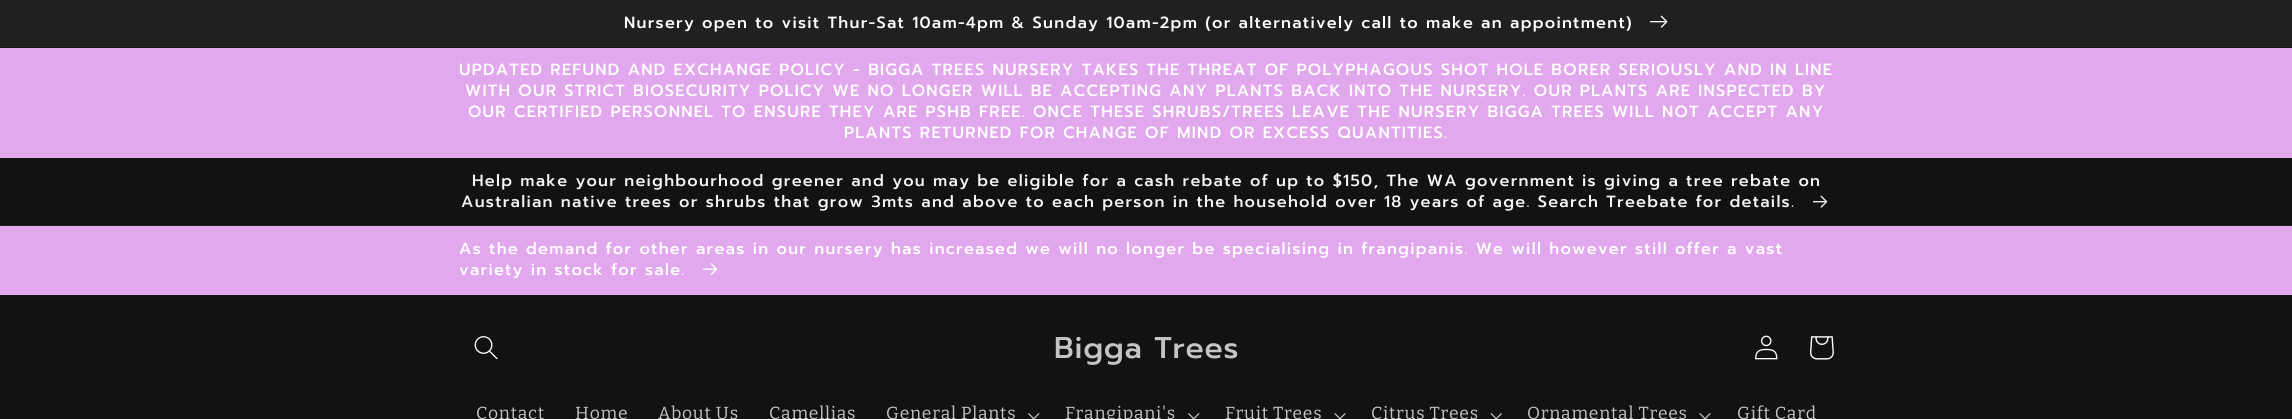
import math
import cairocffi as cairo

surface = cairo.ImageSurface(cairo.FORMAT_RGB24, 2292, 419)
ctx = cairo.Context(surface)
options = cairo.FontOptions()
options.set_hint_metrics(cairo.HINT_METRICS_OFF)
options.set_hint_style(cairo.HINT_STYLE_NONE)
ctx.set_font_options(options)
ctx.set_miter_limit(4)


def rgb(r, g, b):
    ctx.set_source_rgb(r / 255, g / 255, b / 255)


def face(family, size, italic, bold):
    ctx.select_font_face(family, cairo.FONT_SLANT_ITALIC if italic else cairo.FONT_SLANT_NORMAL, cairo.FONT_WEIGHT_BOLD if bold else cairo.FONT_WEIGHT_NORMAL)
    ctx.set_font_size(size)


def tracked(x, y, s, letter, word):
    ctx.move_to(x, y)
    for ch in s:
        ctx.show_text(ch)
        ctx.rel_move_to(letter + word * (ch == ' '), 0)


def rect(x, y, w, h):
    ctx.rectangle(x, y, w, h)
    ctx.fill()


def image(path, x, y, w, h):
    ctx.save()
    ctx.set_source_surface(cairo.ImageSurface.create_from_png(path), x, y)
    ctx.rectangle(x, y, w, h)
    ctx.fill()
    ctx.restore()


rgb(18, 18, 18)
ctx.paint()
rgb(37, 37, 37)
rect(0, 46, 2292, 1)
rgb(32, 32, 32)
rect(0, 0, 2292, 46)
face('Prompt Medium', 16.25, 0, 0)
rgb(255, 255, 255)
tracked(624, 28, 'Nursery open to visit Thur-Sat 10am-4pm & Sunday 10am-2pm (or alternatively call to make an appointment)', 1.25, 0)
image('image0.png', 1650, 15, 18, 13)
rgb(226, 168, 237)
rect(0, 48, 2292, 110)
rgb(228, 175, 238)
rect(0, 156, 2292, 1)
rgb(255, 255, 255)
tracked(459, 75, 'UPDATED REFUND AND EXCHANGE POLICY - BIGGA TREES NURSERY TAKES THE THREAT OF POLYPHAGOUS SHOT HOLE BORER SERIOUSLY AND IN LINE', 1.25, 0)
tracked(465, 96, 'WITH OUR STRICT BIOSECURITY POLICY WE NO LONGER WILL BE ACCEPTING ANY PLANTS BACK INTO THE NURSERY. OUR PLANTS ARE INSPECTED BY', 1.25, 0)
tracked(468, 117, 'OUR CERTIFIED PERSONNEL TO ENSURE THEY ARE PSHB FREE. ONCE THESE SHRUBS/TREES LEAVE THE NURSERY BIGGA TREES WILL NOT ACCEPT ANY', 1.25, 0)
tracked(844, 138, 'PLANTS RETURNED FOR CHANGE OF MIND OR EXCESS QUANTITIES.', 1.25, 0)
rgb(36, 36, 36)
rect(0, 225, 2292, 1)
rgb(245, 245, 245)
tracked(472, 186, 'Help make your neighbourhood greener and you may be eligible for a cash rebate of up to $150, The WA government is giving a tree rebate on', 1.25, 0)
tracked(461, 207, 'Australian native trees or shrubs that grow 3mts and above to each person in the household over 18 years of age. Search Treebate for details.', 1.25, 0)
image('image1.png', 1813, 195, 15, 13)
rgb(226, 168, 237)
rect(0, 226, 2292, 68)
rgb(228, 175, 238)
rect(0, 294, 2292, 1)
rgb(255, 255, 255)
tracked(459, 254, 'As the demand for other areas in our nursery has increased we will no longer be specialising in frangipanis. We will however still offer a vast', 1.25, 0)
tracked(459, 275, 'variety in stock for sale.', 1.25, 0)
image('image2.png', 703, 263, 15, 13)
image('image3.png', 474, 336, 24, 24)
face('Prompt Medium', 30, 0, 0)
rgb(196, 196, 196)
tracked(1054, 358, 'Bigga Trees', 0.75, 0)
image('image4.png', 1755, 335, 23, 25)
image('image5.png', 1810, 336, 24, 24)
face('Bitter', 17.5, 0, 0)
tracked(476, 419, 'Contact', 0.75, 0)
tracked(575, 419, 'Home', 0.75, 0)
tracked(658, 419, 'About Us', 0.75, 0)
tracked(769, 419, 'Camellias', 0.75, 0)
tracked(886, 419, 'General Plants', 0.75, 0)
image('image6.png', 1028, 413, 12, 6)
tracked(1065, 419, 'Frangipani\'s', 0.75, 0)
image('image6.png', 1188, 413, 12, 6)
tracked(1225, 419, 'Fruit Trees', 0.75, 0)
image('image7.png', 1334, 413, 12, 6)
tracked(1371, 419, 'Citrus Trees', 0.75, 0)
image('image8.png', 1490, 413, 12, 6)
tracked(1527, 419, 'Ornamental Trees', 0.75, 0)
image('image7.png', 1699, 413, 12, 6)
tracked(1737, 419, 'Gift Card', 0.75, 0)
surface.write_to_png('render.png')
